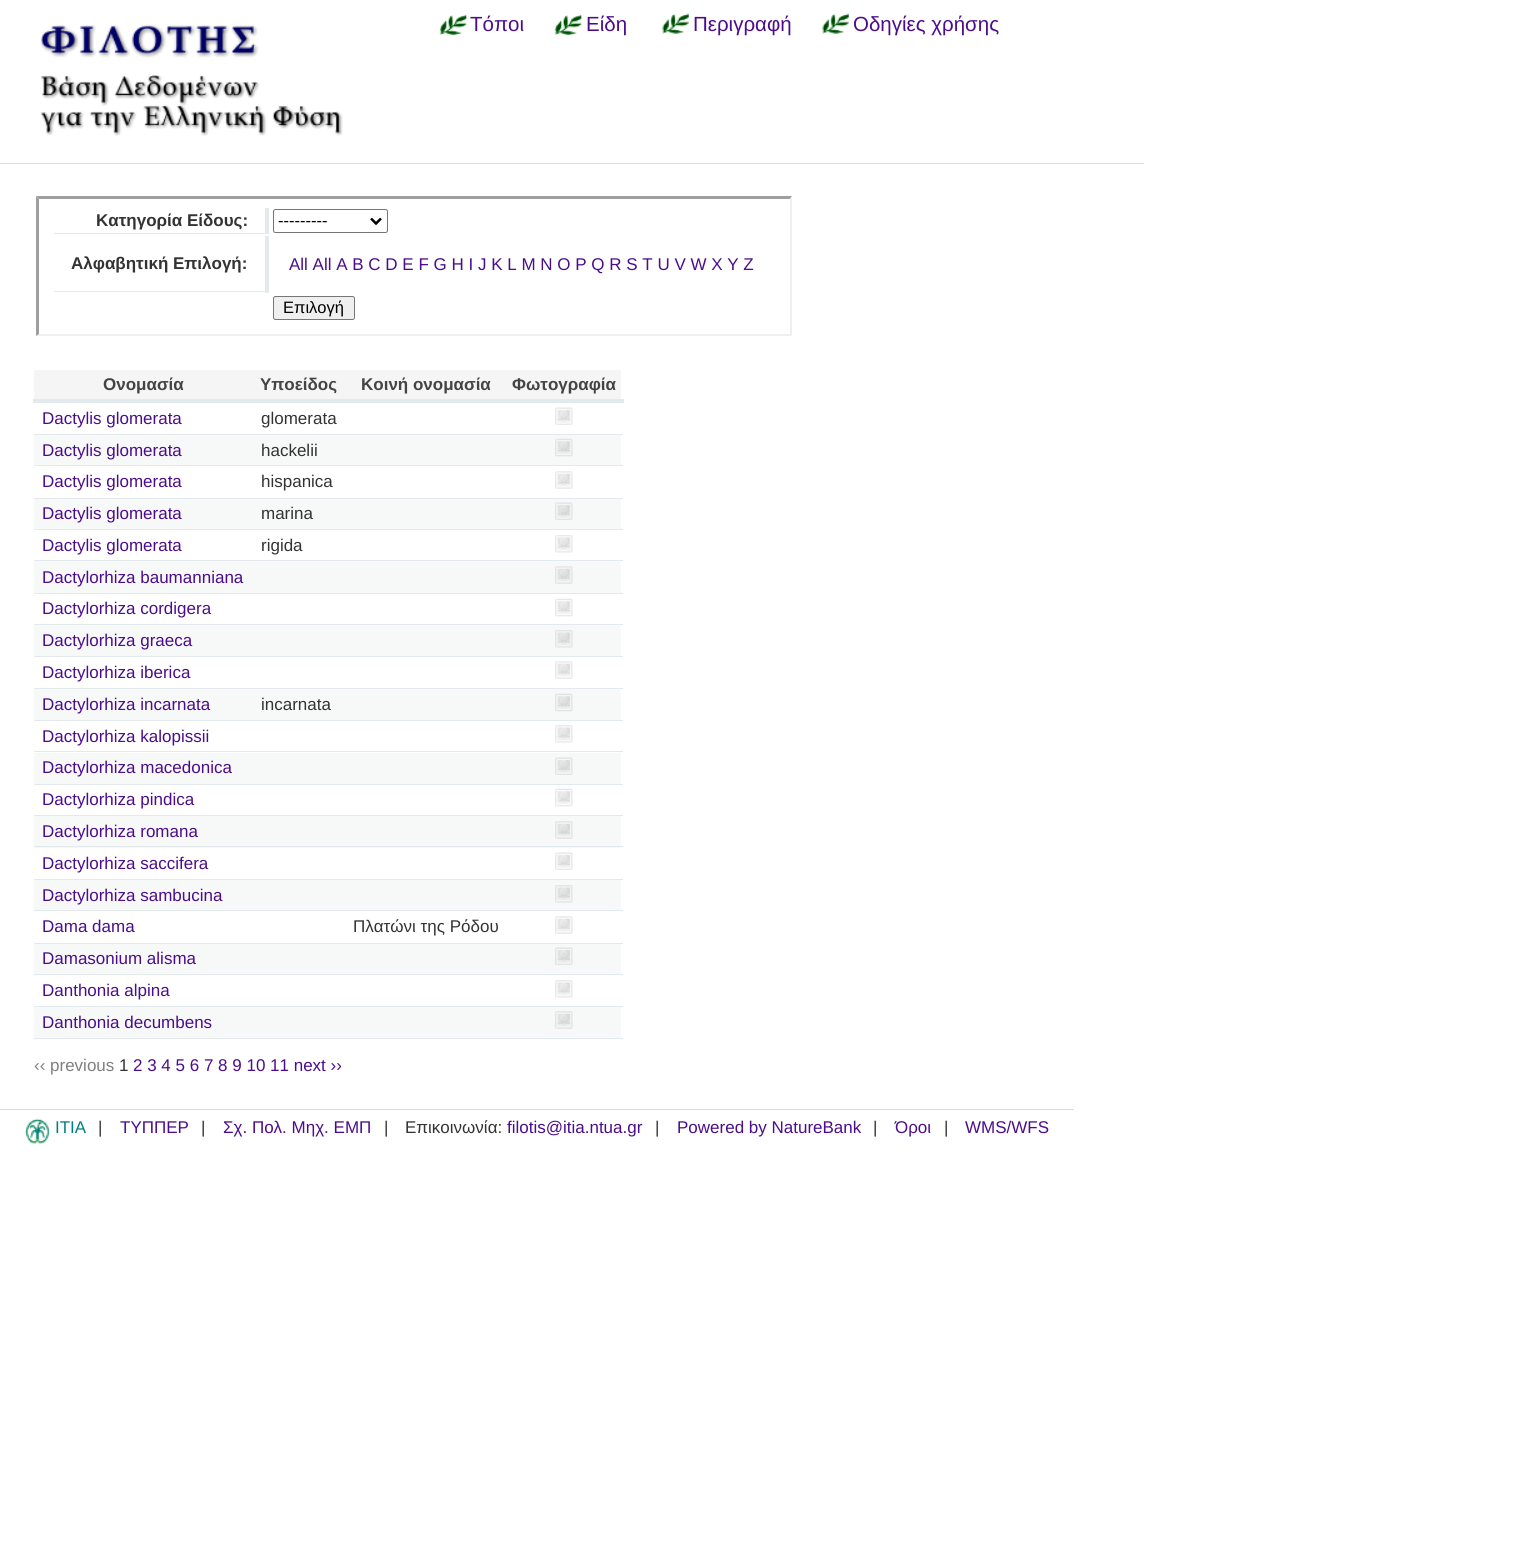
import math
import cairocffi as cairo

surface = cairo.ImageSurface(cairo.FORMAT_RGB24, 1533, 1544)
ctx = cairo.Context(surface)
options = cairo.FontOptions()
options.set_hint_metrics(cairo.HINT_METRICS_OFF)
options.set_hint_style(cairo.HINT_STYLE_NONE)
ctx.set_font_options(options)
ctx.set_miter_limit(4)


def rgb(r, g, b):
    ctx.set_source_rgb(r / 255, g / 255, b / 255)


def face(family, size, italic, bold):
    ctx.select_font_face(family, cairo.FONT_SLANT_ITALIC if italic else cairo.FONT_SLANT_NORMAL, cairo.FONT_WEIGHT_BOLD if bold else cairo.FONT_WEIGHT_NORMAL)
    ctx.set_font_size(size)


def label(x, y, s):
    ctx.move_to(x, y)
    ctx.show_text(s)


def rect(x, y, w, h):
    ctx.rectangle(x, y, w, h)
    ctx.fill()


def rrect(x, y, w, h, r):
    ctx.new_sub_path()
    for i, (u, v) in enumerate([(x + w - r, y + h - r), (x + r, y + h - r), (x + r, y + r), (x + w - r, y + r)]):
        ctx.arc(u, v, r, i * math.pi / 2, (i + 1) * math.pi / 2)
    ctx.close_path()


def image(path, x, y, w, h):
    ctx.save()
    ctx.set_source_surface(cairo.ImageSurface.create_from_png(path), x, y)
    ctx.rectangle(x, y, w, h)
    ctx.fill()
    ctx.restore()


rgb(255, 255, 255)
ctx.paint()
rgb(221, 221, 221)
rect(0, 163, 1144, 1)
image('image0.png', 40, 24, 303, 112)
image('image1.png', 439, 15, 28, 20)
face('Liberation Sans', 20.5, 0, 0)
rgb(76, 13, 140)
label(470, 31, 'Τόποι')
image('image2.png', 554, 15, 28, 20)
label(586, 31, 'Είδη')
image('image3.png', 662, 13, 27, 21)
label(693, 31, 'Περιγραφή')
image('image4.png', 822, 13, 27, 21)
label(853, 31, 'Οδηγίες χρήσης')
rgb(159, 159, 159)
ctx.new_path()
ctx.move_to(36, 196)
ctx.line_to(792, 196)
ctx.line_to(790, 199)
ctx.line_to(39, 199)
ctx.close_path()
ctx.fill()
rgb(239, 239, 239)
ctx.new_path()
ctx.move_to(792, 196)
ctx.line_to(792, 336)
ctx.line_to(790, 334)
ctx.line_to(790, 199)
ctx.close_path()
ctx.fill()
ctx.new_path()
ctx.move_to(792, 336)
ctx.line_to(36, 336)
ctx.line_to(39, 334)
ctx.line_to(790, 334)
ctx.close_path()
ctx.fill()
rgb(159, 159, 159)
ctx.new_path()
ctx.move_to(36, 336)
ctx.line_to(36, 196)
ctx.line_to(39, 199)
ctx.line_to(39, 334)
ctx.close_path()
ctx.fill()
rgb(227, 234, 238)
rect(265, 208, 4, 26)
rect(54, 233, 215, 1)
face('Liberation Sans', 17, 0, 1)
rgb(51, 51, 51)
label(96, 226, 'Κατηγορία Είδους:')
rrect(273.5, 209.5, 114, 23, 2)
rgb(118, 118, 118)
ctx.set_line_width(1)
ctx.stroke()
ctx.new_path()
ctx.move_to(371, 218.5)
ctx.line_to(376, 223.5)
ctx.line_to(381, 218.5)
rgb(0, 0, 0)
ctx.set_line_width(2.5)
ctx.stroke()
face('Liberation Sans', 16.5, 0, 0)
label(278, 226, '---------')
rgb(227, 234, 238)
rect(265, 236, 4, 57)
rect(54, 291, 215, 1)
face('Liberation Sans', 17, 0, 1)
rgb(51, 51, 51)
label(71, 269, 'Αλφαβητική Επιλογή:')
face('Liberation Sans', 17, 0, 0)
rgb(76, 13, 140)
label(289, 270, 'All All A B C D E F G H I J K L M N O P Q R S T U V W X Y Z')
rgb(239, 239, 239)
rrect(273.5, 296.5, 81, 23, 2)
ctx.fill_preserve()
rgb(118, 118, 118)
ctx.set_line_width(1)
ctx.stroke()
face('Liberation Sans', 16.5, 0, 0)
rgb(0, 0, 0)
label(283, 313, 'Επιλογή')
rgb(245, 245, 245)
rect(34, 370, 587, 29)
face('Liberation Sans', 17, 0, 1)
rgb(68, 68, 68)
label(103, 390, 'Ονομασία')
label(260, 390, 'Υποείδος')
label(361, 390, 'Κοινή ονομασία')
rgb(227, 234, 238)
rect(33, 399, 591, 4)
rgb(68, 68, 68)
label(512, 390, 'Φωτογραφία')
rgb(227, 234, 238)
rect(34, 434, 589, 1)
image('image5.png', 555, 407, 18, 18)
face('Liberation Sans', 17, 0, 0)
rgb(76, 13, 140)
label(42, 424, 'Dactylis glomerata')
rgb(51, 51, 51)
label(261, 424, 'glomerata')
rgb(227, 234, 238)
rect(34, 465, 589, 1)
rgb(247, 248, 248)
rect(34, 435, 587, 30)
image('image6.png', 555, 438, 18, 19)
rgb(76, 13, 140)
label(42, 456, 'Dactylis glomerata')
rgb(51, 51, 51)
label(261, 456, 'hackelii')
rgb(227, 234, 238)
rect(34, 498, 589, 1)
image('image7.png', 555, 471, 18, 18)
rgb(76, 13, 140)
label(42, 487, 'Dactylis glomerata')
rgb(51, 51, 51)
label(261, 487, 'hispanica')
rgb(227, 234, 238)
rect(34, 529, 589, 1)
rgb(247, 248, 248)
rect(34, 499, 587, 30)
image('image8.png', 555, 502, 18, 18)
rgb(76, 13, 140)
label(42, 519, 'Dactylis glomerata')
rgb(51, 51, 51)
label(261, 519, 'marina')
rgb(227, 234, 238)
rect(34, 560, 589, 1)
image('image9.png', 555, 535, 18, 18)
rgb(76, 13, 140)
label(42, 551, 'Dactylis glomerata')
rgb(51, 51, 51)
label(261, 551, 'rigida')
rgb(227, 234, 238)
rect(34, 593, 589, 1)
rgb(247, 248, 248)
rect(34, 561, 587, 32)
image('image10.png', 555, 566, 18, 18)
rgb(76, 13, 140)
label(42, 583, 'Dactylorhiza baumanniana')
rgb(227, 234, 238)
rect(34, 624, 589, 1)
image('image11.png', 555, 598, 18, 19)
rgb(76, 13, 140)
label(42, 614, 'Dactylorhiza cordigera')
rgb(227, 234, 238)
rect(34, 656, 589, 1)
rgb(247, 248, 248)
rect(34, 625, 587, 31)
image('image12.png', 555, 630, 18, 18)
rgb(76, 13, 140)
label(42, 646, 'Dactylorhiza graeca')
rgb(227, 234, 238)
rect(34, 688, 589, 1)
image('image7.png', 555, 661, 18, 18)
rgb(76, 13, 140)
label(42, 678, 'Dactylorhiza iberica')
rgb(227, 234, 238)
rect(34, 720, 589, 1)
rgb(247, 248, 248)
rect(34, 689, 587, 31)
image('image6.png', 555, 693, 18, 19)
rgb(76, 13, 140)
label(42, 710, 'Dactylorhiza incarnata')
rgb(51, 51, 51)
label(261, 710, 'incarnata')
rgb(227, 234, 238)
rect(34, 751, 589, 1)
image('image9.png', 555, 725, 18, 18)
rgb(76, 13, 140)
label(42, 742, 'Dactylorhiza kalopissii')
rgb(227, 234, 238)
rect(34, 784, 589, 1)
rgb(247, 248, 248)
rect(34, 753, 587, 31)
image('image8.png', 555, 757, 18, 18)
rgb(76, 13, 140)
label(42, 773, 'Dactylorhiza macedonica')
rgb(227, 234, 238)
rect(34, 815, 589, 1)
image('image11.png', 555, 788, 18, 19)
rgb(76, 13, 140)
label(42, 805, 'Dactylorhiza pindica')
rgb(247, 248, 248)
rect(34, 816, 587, 32)
rgb(227, 234, 238)
rect(34, 846, 589, 1)
image('image10.png', 555, 821, 18, 18)
rgb(76, 13, 140)
label(42, 837, 'Dactylorhiza romana')
rgb(227, 234, 238)
rect(34, 879, 589, 1)
image('image5.png', 555, 852, 18, 18)
rgb(76, 13, 140)
label(42, 869, 'Dactylorhiza saccifera')
rgb(227, 234, 238)
rect(34, 910, 589, 1)
rgb(247, 248, 248)
rect(34, 880, 587, 30)
image('image12.png', 555, 885, 18, 18)
rgb(76, 13, 140)
label(42, 901, 'Dactylorhiza sambucina')
rgb(227, 234, 238)
rect(34, 943, 589, 1)
image('image7.png', 555, 916, 18, 18)
rgb(76, 13, 140)
label(42, 932, 'Dama dama')
rgb(51, 51, 51)
label(353, 932, 'Πλατώνι της Ρόδου')
rgb(227, 234, 238)
rect(34, 974, 589, 1)
rgb(247, 248, 248)
rect(34, 944, 587, 30)
image('image8.png', 555, 947, 18, 18)
rgb(76, 13, 140)
label(42, 964, 'Damasonium alisma')
rgb(227, 234, 238)
rect(34, 1006, 589, 1)
image('image9.png', 555, 980, 18, 18)
rgb(76, 13, 140)
label(42, 996, 'Danthonia alpina')
rgb(227, 234, 238)
rect(34, 1038, 589, 1)
rgb(247, 248, 248)
rect(34, 1007, 587, 31)
image('image10.png', 555, 1011, 18, 18)
rgb(76, 13, 140)
label(42, 1028, 'Danthonia decumbens')
rgb(128, 128, 128)
label(34, 1071, '‹‹ previous')
rgb(51, 51, 51)
label(119, 1071, '1')
rgb(76, 13, 140)
label(133, 1071, '2 3 4 5 6 7 8 9 10 11 next ››')
rgb(221, 221, 221)
rect(0, 1109, 1074, 1)
image('image13.png', 25, 1118, 25, 26)
rgb(0, 127, 127)
label(55, 1133, 'ITIA')
rgb(51, 51, 51)
label(98, 1133, '|')
rgb(76, 13, 140)
label(120, 1133, 'ΤΥΠΠΕΡ')
rgb(51, 51, 51)
label(201, 1133, '|')
rgb(76, 13, 140)
label(223, 1133, 'Σχ. Πολ. Μηχ. ΕΜΠ')
rgb(51, 51, 51)
label(384, 1133, '|')
label(405, 1133, 'Επικοινωνία:')
rgb(76, 13, 140)
label(507, 1133, 'filotis@itia.ntua.gr')
rgb(51, 51, 51)
label(655, 1133, '|')
rgb(76, 13, 140)
label(677, 1133, 'Powered by NatureBank')
rgb(51, 51, 51)
label(873, 1133, '|')
rgb(76, 13, 140)
label(895, 1133, 'Όροι')
rgb(51, 51, 51)
label(944, 1133, '|')
rgb(76, 13, 140)
label(965, 1133, 'WMS/WFS')
surface.write_to_png('render.png')
